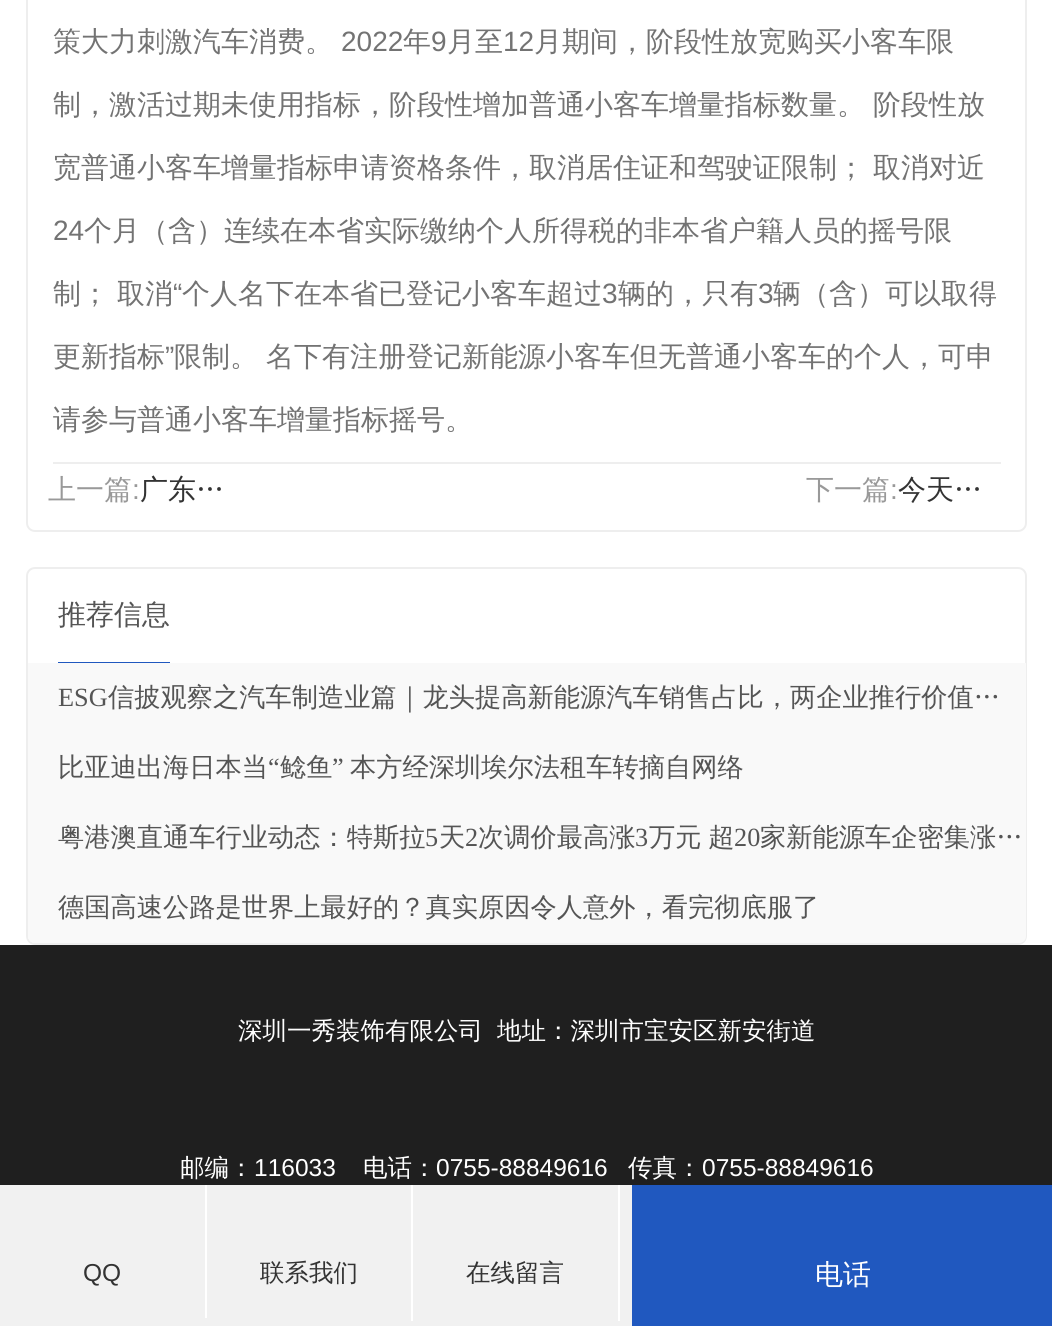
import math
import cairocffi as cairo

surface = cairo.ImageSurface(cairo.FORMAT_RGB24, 1052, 1326)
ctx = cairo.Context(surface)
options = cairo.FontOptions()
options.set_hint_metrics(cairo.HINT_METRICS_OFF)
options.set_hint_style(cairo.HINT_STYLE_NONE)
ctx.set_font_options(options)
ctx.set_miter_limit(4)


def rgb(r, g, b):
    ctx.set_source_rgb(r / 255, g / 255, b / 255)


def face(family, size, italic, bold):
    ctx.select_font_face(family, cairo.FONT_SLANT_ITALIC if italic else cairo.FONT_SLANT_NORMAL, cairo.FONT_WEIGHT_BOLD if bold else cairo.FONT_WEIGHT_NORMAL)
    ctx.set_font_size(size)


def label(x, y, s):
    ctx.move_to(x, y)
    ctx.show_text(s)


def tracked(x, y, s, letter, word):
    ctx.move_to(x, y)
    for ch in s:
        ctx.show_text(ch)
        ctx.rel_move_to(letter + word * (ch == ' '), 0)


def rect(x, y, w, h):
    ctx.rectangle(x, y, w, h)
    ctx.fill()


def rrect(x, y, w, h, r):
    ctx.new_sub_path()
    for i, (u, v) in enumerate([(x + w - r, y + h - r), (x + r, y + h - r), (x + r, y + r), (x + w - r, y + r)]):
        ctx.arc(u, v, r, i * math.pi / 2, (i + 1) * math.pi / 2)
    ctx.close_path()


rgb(255, 255, 255)
ctx.paint()
rrect(27, -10, 999, 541, 8)
rgb(238, 238, 238)
ctx.stroke()
rect(53, 462, 948, 2)
face('WenQuanYi Zen Hei Medium', 28, 0, 0)
rgb(115, 115, 115)
label(53, 51, '策大力刺激汽车消费。')
face('Liberation Sans', 28, 0, 0)
label(341, 51, '2022')
face('WenQuanYi Zen Hei Medium', 28, 0, 0)
label(403, 51, '年')
face('Liberation Sans', 28, 0, 0)
label(431, 51, '9')
face('WenQuanYi Zen Hei Medium', 28, 0, 0)
label(447, 51, '月至')
face('Liberation Sans', 28, 0, 0)
label(503, 51, '12')
face('WenQuanYi Zen Hei Medium', 28, 0, 0)
label(534, 51, '月期间，阶段性放宽购买小客车限')
label(53, 114, '制，激活过期未使用指标，阶段性增加普通小客车增量指标数量。')
label(873, 114, '阶段性放')
label(53, 177, '宽普通小客车增量指标申请资格条件，取消居住证和驾驶证限制；')
label(873, 177, '取消对近')
face('Liberation Sans', 28, 0, 0)
label(53, 240, '24')
face('WenQuanYi Zen Hei Medium', 28, 0, 0)
label(84, 240, '个月（含）连续在本省实际缴纳个人所得税的非本省户籍人员的摇号限')
label(53, 303, '制；')
label(117, 303, '取消')
face('Liberation Sans', 28, 0, 0)
label(173, 303, '“')
face('WenQuanYi Zen Hei Medium', 28, 0, 0)
label(182, 303, '个人名下在本省已登记小客车超过')
face('Liberation Sans', 28, 0, 0)
label(602, 303, '3')
face('WenQuanYi Zen Hei Medium', 28, 0, 0)
label(618, 303, '辆的，只有')
face('Liberation Sans', 28, 0, 0)
label(758, 303, '3')
face('WenQuanYi Zen Hei Medium', 28, 0, 0)
label(773, 303, '辆（含）可以取得')
label(53, 366, '更新指标')
face('Liberation Sans', 28, 0, 0)
label(165, 366, '”')
face('WenQuanYi Zen Hei Medium', 28, 0, 0)
label(174, 366, '限制。')
label(266, 366, '名下有注册登记新能源小客车但无普通小客车的个人，可申')
label(53, 429, '请参与普通小客车增量指标摇号。')
rgb(153, 153, 153)
label(48, 499, '上一篇')
face('Liberation Sans', 28, 0, 0)
label(132, 499, ':')
face('WenQuanYi Zen Hei Medium', 28, 0, 0)
rgb(51, 51, 51)
label(140, 499, '广东…')
rgb(153, 153, 153)
label(806, 499, '下一篇')
face('Liberation Sans', 28, 0, 0)
label(890, 499, ':')
face('WenQuanYi Zen Hei Medium', 28, 0, 0)
rgb(51, 51, 51)
label(898, 499, '今天…')
rrect(27, 568, 999, 376, 8)
rgb(238, 238, 238)
ctx.stroke()
rgb(32, 88, 191)
rect(58, 662, 112, 1)
rgb(85, 85, 85)
label(58, 624, '推荐信息')
rgb(249, 249, 249)
ctx.new_path()
ctx.move_to(28, 663)
ctx.line_to(1026, 663)
ctx.line_to(1026, 936)
ctx.curve_to(1026, 940, 1023, 943, 1019, 943)
ctx.line_to(35, 943)
ctx.curve_to(31, 943, 28, 940, 28, 936)
ctx.close_path()
ctx.fill()
face('Liberation Serif', 26.25, 0, 0)
rgb(85, 85, 85)
label(58, 706, 'ESG')
face('WenQuanYi Zen Hei Medium', 26.25, 0, 0)
label(108, 706, '信披观察之汽车制造业篇｜龙头提高新能源汽车销售占比，两企业推行价值…')
label(58, 776, '比亚迪出海日本当')
face('Liberation Serif', 26.25, 0, 0)
label(268, 776, '“')
face('WenQuanYi Zen Hei Medium', 26.25, 0, 0)
label(280, 776, '鲶鱼')
face('Liberation Serif', 26.25, 0, 0)
label(332, 776, '”')
face('WenQuanYi Zen Hei Medium', 26.25, 0, 0)
label(350, 776, '本方经深圳埃尔法租车转摘自网络')
label(58, 846, '粤港澳直通车行业动态：特斯拉')
face('Liberation Serif', 26.25, 0, 0)
label(425, 846, '5')
face('WenQuanYi Zen Hei Medium', 26.25, 0, 0)
label(439, 846, '天')
face('Liberation Serif', 26.25, 0, 0)
label(465, 846, '2')
face('WenQuanYi Zen Hei Medium', 26.25, 0, 0)
label(478, 846, '次调价最高涨')
face('Liberation Serif', 26.25, 0, 0)
label(635, 846, '3')
face('WenQuanYi Zen Hei Medium', 26.25, 0, 0)
tracked(649, 846, '万元 超', 0, -1)
face('Liberation Serif', 26.25, 0, 0)
label(734, 846, '20')
face('WenQuanYi Zen Hei Medium', 26.25, 0, 0)
label(760, 846, '家新能源车企密集涨…')
label(58, 916, '德国高速公路是世界上最好的？真实原因令人意外，看完彻底服了')
rgb(31, 31, 31)
rect(0, 945, 1052, 240)
face('WenQuanYi Zen Hei Medium', 24.5, 0, 0)
rgb(255, 255, 255)
label(238, 1039, '深圳一秀装饰有限公司')
label(497, 1039, '地址：深圳市宝安区新安街道')
label(180, 1176, '邮编：')
face('Liberation Sans', 24.5, 0, 0)
label(254, 1176, '116033')
face('WenQuanYi Zen Hei Medium', 24.5, 0, 0)
label(363, 1176, '电话：')
face('Liberation Sans', 24.5, 0, 0)
label(436, 1176, '0755-88849616')
face('WenQuanYi Zen Hei Medium', 24.5, 0, 0)
label(628, 1176, '传真：')
face('Liberation Sans', 24.5, 0, 0)
label(702, 1176, '0755-88849616')
rgb(241, 241, 241)
rect(0, 1185, 632, 141)
rgb(255, 255, 255)
rect(205, 1185, 2, 133)
rgb(51, 51, 51)
label(83, 1281, 'QQ')
rgb(255, 255, 255)
rect(411, 1185, 2, 136)
face('WenQuanYi Zen Hei Medium', 24.5, 0, 0)
rgb(51, 51, 51)
label(260, 1281, '联系我们')
rgb(255, 255, 255)
rect(618, 1185, 2, 136)
rgb(51, 51, 51)
label(466, 1281, '在线留言')
rgb(32, 88, 191)
rect(632, 1185, 420, 141)
face('WenQuanYi Zen Hei Medium', 28, 0, 0)
rgb(255, 255, 255)
label(815, 1284, '电话')
surface.write_to_png('render.png')
